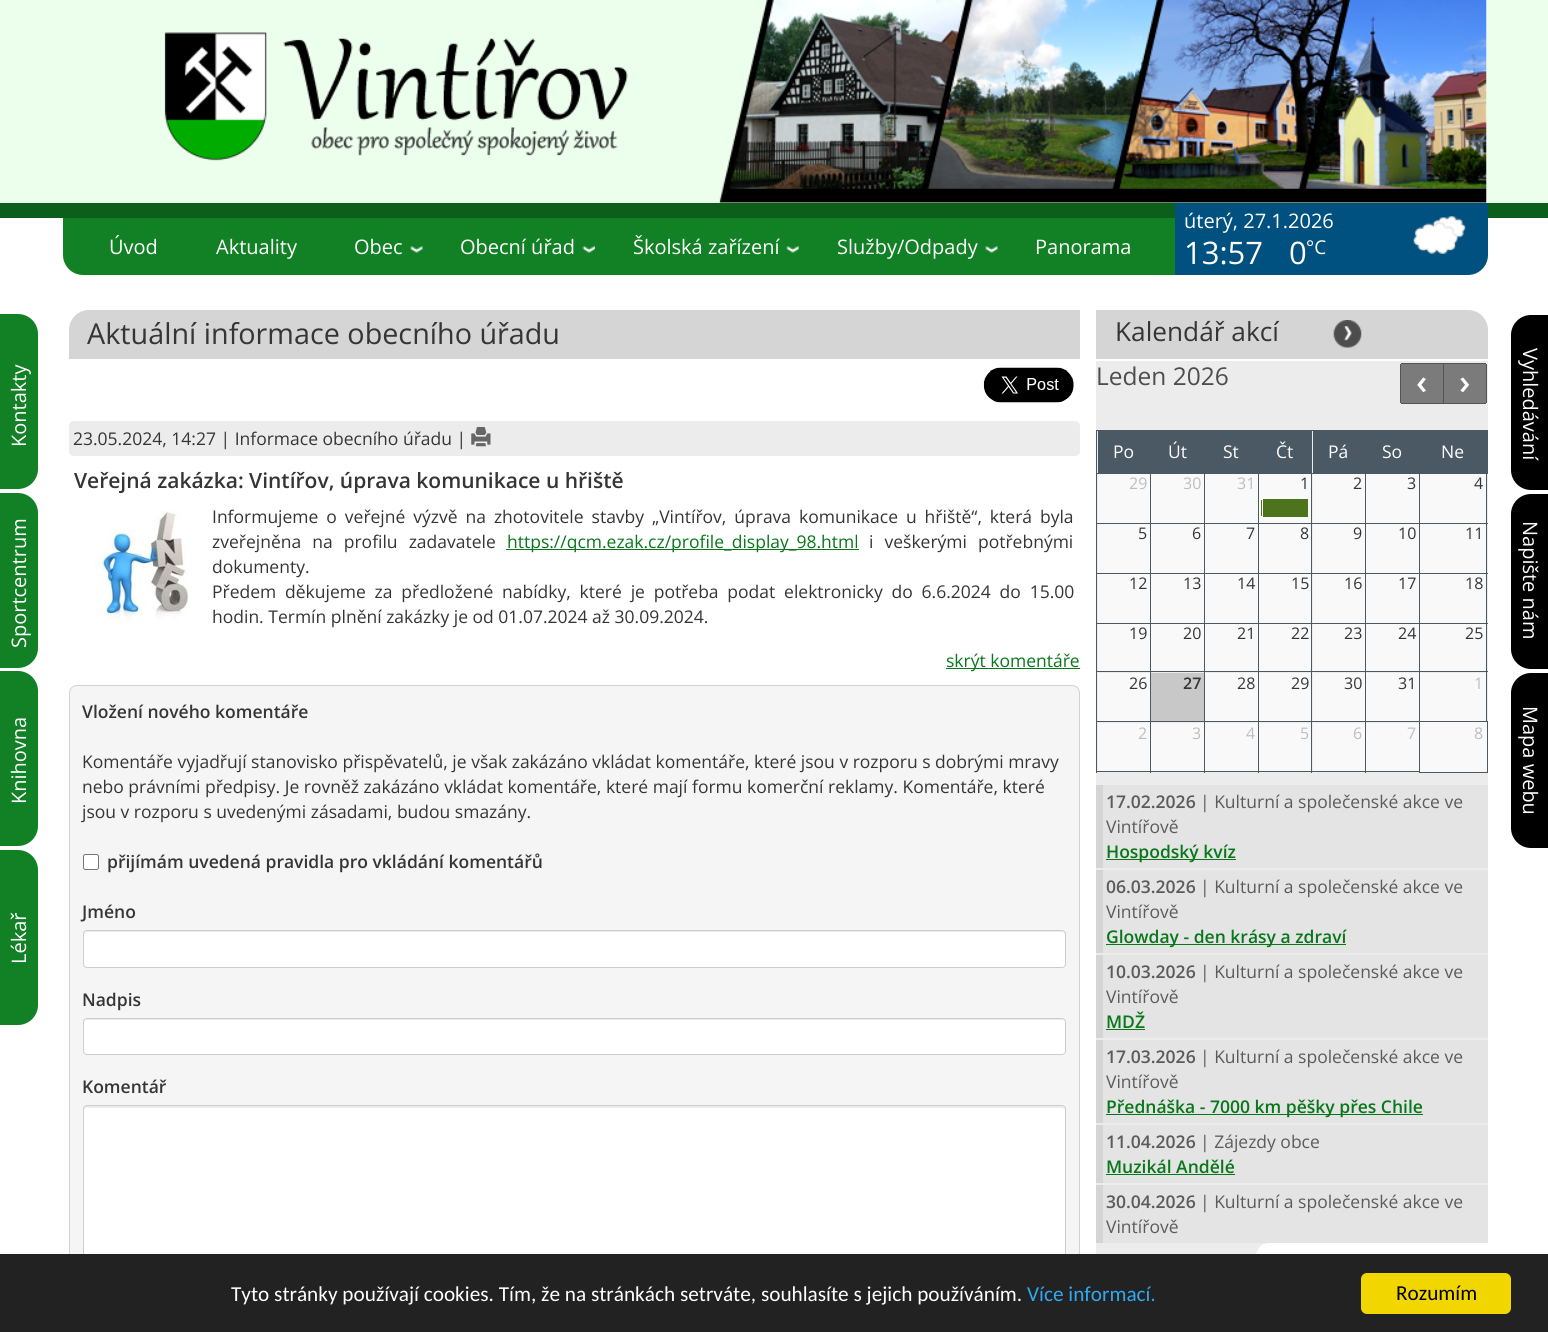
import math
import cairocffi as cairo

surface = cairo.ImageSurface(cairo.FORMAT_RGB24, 1548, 1332)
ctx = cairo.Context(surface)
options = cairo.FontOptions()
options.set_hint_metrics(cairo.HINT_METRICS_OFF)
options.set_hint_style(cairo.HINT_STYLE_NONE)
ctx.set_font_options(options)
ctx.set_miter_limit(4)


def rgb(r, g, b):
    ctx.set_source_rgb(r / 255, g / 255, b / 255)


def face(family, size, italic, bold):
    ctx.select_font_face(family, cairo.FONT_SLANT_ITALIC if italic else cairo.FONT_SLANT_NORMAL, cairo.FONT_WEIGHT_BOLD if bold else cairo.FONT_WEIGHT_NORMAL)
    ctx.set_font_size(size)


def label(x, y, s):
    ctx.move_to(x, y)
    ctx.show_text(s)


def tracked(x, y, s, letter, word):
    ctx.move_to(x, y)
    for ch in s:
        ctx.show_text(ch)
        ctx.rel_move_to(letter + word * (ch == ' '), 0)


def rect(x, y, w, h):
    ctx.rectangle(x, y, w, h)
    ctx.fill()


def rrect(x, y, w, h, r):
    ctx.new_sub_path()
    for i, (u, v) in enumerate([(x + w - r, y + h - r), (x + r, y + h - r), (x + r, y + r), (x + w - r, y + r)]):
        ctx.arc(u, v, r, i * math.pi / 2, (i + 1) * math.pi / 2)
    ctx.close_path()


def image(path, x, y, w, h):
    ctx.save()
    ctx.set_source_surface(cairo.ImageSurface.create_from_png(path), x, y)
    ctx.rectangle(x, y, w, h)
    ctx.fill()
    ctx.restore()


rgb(255, 255, 255)
ctx.paint()
rgb(236, 255, 236)
rect(0, 0, 1548, 203)
rgb(12, 94, 27)
rect(0, 203, 1548, 15)
rgb(18, 129, 38)
ctx.new_path()
ctx.move_to(0, 314)
ctx.line_to(18, 314)
ctx.curve_to(29, 314, 38, 323, 38, 334)
ctx.line_to(38, 469)
ctx.curve_to(38, 480, 29, 489, 18, 489)
ctx.line_to(0, 489)
ctx.close_path()
ctx.fill()
face('Open Sans', 20, 0, 0)
rgb(255, 255, 255)
ctx.save()
ctx.translate(26, 447)
ctx.rotate(-90 * math.pi / 180)
label(0, 0, 'Kontakty')
ctx.restore()
rgb(18, 129, 38)
ctx.new_path()
ctx.move_to(0, 493)
ctx.line_to(18, 493)
ctx.curve_to(29, 493, 38, 502, 38, 513)
ctx.line_to(38, 648)
ctx.curve_to(38, 659, 29, 668, 18, 668)
ctx.line_to(0, 668)
ctx.close_path()
ctx.fill()
rgb(255, 255, 255)
ctx.save()
ctx.translate(26, 648)
ctx.rotate(-90 * math.pi / 180)
label(0, 0, 'Sportcentrum')
ctx.restore()
rgb(18, 129, 38)
ctx.new_path()
ctx.move_to(0, 671)
ctx.line_to(18, 671)
ctx.curve_to(29, 671, 38, 680, 38, 691)
ctx.line_to(38, 826)
ctx.curve_to(38, 837, 29, 846, 18, 846)
ctx.line_to(0, 846)
ctx.close_path()
ctx.fill()
rgb(255, 255, 255)
ctx.save()
ctx.translate(26, 804)
ctx.rotate(-90 * math.pi / 180)
label(0, 0, 'Knihovna')
ctx.restore()
rgb(18, 129, 38)
ctx.new_path()
ctx.move_to(0, 850)
ctx.line_to(18, 850)
ctx.curve_to(29, 850, 38, 859, 38, 870)
ctx.line_to(38, 1005)
ctx.curve_to(38, 1016, 29, 1025, 18, 1025)
ctx.line_to(0, 1025)
ctx.close_path()
ctx.fill()
rgb(255, 255, 255)
ctx.save()
ctx.translate(26, 964)
ctx.rotate(-90 * math.pi / 180)
label(0, 0, 'Lékař')
ctx.restore()
image('image0.png', 164, 0, 1323, 203)
rgb(18, 129, 38)
ctx.new_path()
ctx.move_to(63, 218)
ctx.line_to(1175, 218)
ctx.line_to(1175, 275)
ctx.line_to(83, 275)
ctx.curve_to(72, 275, 63, 266, 63, 255)
ctx.close_path()
ctx.fill()
rgb(255, 255, 255)
label(109, 254, 'Úvod')
label(216, 254, 'Aktuality')
label(354, 254, 'Obec')
image('image1.png', 410, 246, 13, 7)
label(460, 254, 'Obecní úřad')
image('image2.png', 582, 246, 13, 7)
label(633, 254, 'Školská zařízení')
image('image3.png', 786, 246, 13, 7)
label(837, 254, 'Služby/Odpady')
image('image1.png', 985, 246, 13, 7)
label(1035, 254, 'Panorama')
rgb(0, 81, 127)
ctx.new_path()
ctx.move_to(1175, 203)
ctx.line_to(1488, 203)
ctx.line_to(1488, 255)
ctx.curve_to(1488, 266, 1479, 275, 1468, 275)
ctx.line_to(1175, 275)
ctx.close_path()
ctx.fill()
rgb(255, 255, 255)
label(1184, 228, 'úterý, 27.1.2026')
face('Open Sans', 31, 0, 0)
label(1184, 264, '13:57')
label(1289, 264, '0')
face('Open Sans', 19, 0, 0)
label(1306, 254, '°C')
image('image4.png', 1413, 216, 53, 38)
rgb(213, 213, 213)
ctx.new_path()
ctx.move_to(89, 310)
ctx.line_to(1080, 310)
ctx.line_to(1080, 359)
ctx.line_to(69, 359)
ctx.line_to(69, 330)
ctx.curve_to(69, 319, 78, 310, 89, 310)
ctx.close_path()
ctx.fill()
face('Open Sans', 28.75, 0, 0)
rgb(53, 53, 53)
label(87, 344, 'Aktuální informace obecního úřadu')
image('image5.png', 983, 367, 91, 36)
rgb(236, 236, 236)
rrect(69, 421, 1011, 35, 5)
ctx.fill()
face('Open Sans', 17.5, 0, 0)
rgb(53, 53, 53)
label(73, 445, '23.05.2024, 14:27 | Informace obecního úřadu |')
image('image6.png', 471, 427, 20, 20)
face('Open Sans SemiBold', 21, 0, 0)
label(74, 488, 'Veřejná zakázka: Vintířov, úprava komunikace u hřiště')
image('image7.png', 95, 511, 93, 113)
face('Open Sans', 17.5, 0, 0)
tracked(212, 523, 'Informujeme o veřejné výzvě na zhotovitele stavby „Vintířov, úprava komunikace u hřiště“, která byla', 0, 3.4)
tracked(212, 548, 'zveřejněna na profilu zadavatele', 0, 6.5)
rgb(8, 119, 26)
rect(506, 549, 353, 1)
label(507, 548, 'https://qcm.ezak.cz/profile_display_98.html')
rgb(53, 53, 53)
tracked(869, 548, 'i veškerými potřebnými', 0, 6.5)
label(212, 573, 'dokumenty.')
tracked(212, 598, 'Předem děkujeme za předložené nabídky, které je potřeba podat elektronicky do 6.6.2024 do 15.00', 0, 4.25)
label(212, 623, 'hodin. Termín plnění zakázky je od 01.07.2024 až 30.09.2024.')
rgb(8, 119, 26)
rect(946, 668, 134, 1)
label(946, 667, 'skrýt komentáře')
rgb(245, 245, 245)
rrect(69.5, 685.5, 1010, 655, 7.5)
ctx.fill_preserve()
rgb(210, 210, 210)
ctx.set_line_width(1)
ctx.stroke()
face('Open Sans SemiBold', 17.5, 0, 0)
rgb(53, 53, 53)
label(82, 718, 'Vložení nového komentáře')
face('Open Sans', 17.5, 0, 0)
label(82, 768, 'Komentáře vyjadřují stanovisko přispěvatelů, je však zakázáno vkládat komentáře, které jsou v rozporu s dobrými mravy')
label(82, 793, 'nebo právními předpisy. Je rovněž zakázáno vkládat komentáře, které mají formu komerční reklamy. Komentáře, které')
label(82, 818, 'jsou v rozporu s uvedenými zásadami, budou smazány.')
rgb(255, 255, 255)
rrect(83.5, 854.5, 15, 15, 2)
ctx.fill_preserve()
rgb(118, 118, 118)
ctx.stroke()
face('Open Sans SemiBold', 17.5, 0, 0)
rgb(53, 53, 53)
label(107, 868, 'přijímám uvedená pravidla pro vkládání komentářů')
label(82, 918, 'Jméno')
rgb(255, 255, 255)
rrect(83, 930, 983, 38, 4)
ctx.fill()
rgb(236, 236, 236)
ctx.new_path()
ctx.move_to(86, 932)
ctx.line_to(1062, 932)
ctx.curve_to(1064, 932, 1065, 934, 1065, 935)
ctx.curve_to(1065, 933, 1065, 931, 1062, 931)
ctx.line_to(86, 931)
ctx.curve_to(84, 931, 84, 933, 84, 935)
ctx.curve_to(84, 934, 85, 932, 86, 932)
ctx.close_path()
ctx.fill()
rrect(83.5, 930.5, 982, 37, 3.5)
rgb(204, 204, 204)
ctx.stroke()
rgb(53, 53, 53)
label(82, 1006, 'Nadpis')
rgb(255, 255, 255)
rrect(83, 1018, 983, 37, 4)
ctx.fill()
rgb(236, 236, 236)
ctx.new_path()
ctx.move_to(86, 1020)
ctx.line_to(1062, 1020)
ctx.curve_to(1064, 1020, 1065, 1021, 1065, 1022)
ctx.curve_to(1065, 1020, 1064, 1019, 1062, 1019)
ctx.line_to(86, 1019)
ctx.curve_to(85, 1019, 84, 1020, 84, 1022)
ctx.curve_to(84, 1021, 85, 1020, 86, 1020)
ctx.close_path()
ctx.fill()
rrect(83.5, 1018.5, 982, 36, 3.5)
rgb(204, 204, 204)
ctx.stroke()
rgb(53, 53, 53)
label(82, 1093, 'Komentář')
rgb(255, 255, 255)
rrect(83, 1105, 983, 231, 4)
ctx.fill()
rgb(236, 236, 236)
ctx.new_path()
ctx.move_to(86, 1108)
ctx.line_to(1062, 1108)
ctx.curve_to(1064, 1108, 1065, 1109, 1065, 1110)
ctx.curve_to(1065, 1108, 1065, 1106, 1062, 1106)
ctx.line_to(86, 1106)
ctx.curve_to(84, 1106, 84, 1108, 84, 1110)
ctx.curve_to(84, 1109, 85, 1108, 86, 1108)
ctx.close_path()
ctx.fill()
rrect(83.5, 1105.5, 982, 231, 3.5)
rgb(204, 204, 204)
ctx.stroke()
rgb(213, 213, 213)
ctx.new_path()
ctx.move_to(1096, 310)
ctx.line_to(1468, 310)
ctx.curve_to(1479, 310, 1488, 319, 1488, 330)
ctx.line_to(1488, 359)
ctx.line_to(1096, 359)
ctx.close_path()
ctx.fill()
face('Open Sans', 26.25, 0, 0)
rgb(53, 53, 53)
label(1115, 341, 'Kalendář akcí')
image('image8.png', 1333, 320, 29, 28)
rgb(236, 236, 236)
rect(1096, 361, 392, 824)
face('Open Sans', 24.5, 0, 0)
rgb(77, 77, 77)
label(1096, 385, 'Leden 2026')
rgb(123, 123, 123)
rect(1401, 364, 42, 39)
rgb(84, 84, 84)
rect(1401, 363, 85, 1)
rect(1401, 403, 85, 1)
rect(1400, 364, 1, 39)
face('Open Sans SemiBold', 34, 0, 0)
rgb(255, 255, 255)
label(1416, 394, '‹')
rgb(123, 123, 123)
rect(1444, 364, 42, 39)
rgb(84, 84, 84)
rect(1486, 364, 1, 39)
rect(1443, 364, 1, 39)
rgb(255, 255, 255)
label(1459, 394, '›')
rgb(75, 89, 101)
rect(1098, 431, 52, 42)
rect(1096, 430, 323, 1)
rect(1096, 473, 323, 1)
rect(1096, 430, 1, 93)
face('Open Sans', 17.5, 0, 0)
rgb(255, 255, 255)
label(1113, 458, 'Po')
rgb(75, 89, 101)
rect(1151, 431, 53, 42)
rect(1150, 430, 1, 93)
rgb(255, 255, 255)
label(1168, 458, 'Út')
rgb(75, 89, 101)
rect(1205, 431, 53, 42)
rect(1204, 430, 1, 93)
rgb(255, 255, 255)
label(1223, 458, 'St')
rgb(75, 89, 101)
rect(1259, 431, 52, 42)
rect(1258, 430, 1, 93)
rgb(255, 255, 255)
label(1276, 458, 'Čt')
rgb(75, 89, 101)
rect(1313, 431, 52, 42)
rect(1311, 430, 1, 93)
rgb(255, 255, 255)
label(1328, 458, 'Pá')
rgb(75, 89, 101)
rect(1366, 431, 53, 42)
rect(1365, 430, 1, 93)
rgb(255, 255, 255)
label(1382, 458, 'So')
rgb(75, 89, 101)
rect(1419, 430, 69, 44)
rgb(255, 255, 255)
label(1441, 458, 'Ne')
rgb(249, 249, 249)
rect(1098, 474, 52, 49)
face('Open Sans', 16, 0, 0)
rgb(190, 190, 190)
label(1129, 489, '29')
rgb(249, 249, 249)
rect(1151, 474, 53, 49)
rgb(190, 190, 190)
label(1183, 489, '30')
rgb(249, 249, 249)
rect(1205, 474, 53, 49)
rgb(190, 190, 190)
label(1237, 489, '31')
rgb(249, 249, 249)
rect(1259, 474, 52, 49)
rgb(53, 53, 53)
label(1300, 489, '1')
rgb(249, 249, 249)
rect(1313, 474, 52, 49)
rgb(53, 53, 53)
label(1353, 489, '2')
rgb(249, 249, 249)
rect(1366, 474, 53, 49)
rgb(53, 53, 53)
label(1407, 489, '3')
rgb(249, 249, 249)
rect(1420, 474, 66, 49)
rgb(75, 89, 101)
rect(1486, 474, 1, 49)
rect(1419, 474, 1, 49)
rgb(53, 53, 53)
label(1474, 489, '4')
rgb(249, 249, 249)
rect(1098, 524, 52, 49)
rgb(75, 89, 101)
rect(1096, 523, 392, 1)
rect(1096, 523, 1, 50)
rgb(53, 53, 53)
label(1138, 539, '5')
rgb(249, 249, 249)
rect(1151, 524, 53, 49)
rgb(75, 89, 101)
rect(1150, 523, 1, 50)
rgb(53, 53, 53)
label(1192, 539, '6')
rgb(249, 249, 249)
rect(1205, 524, 53, 49)
rgb(75, 89, 101)
rect(1204, 523, 1, 50)
rgb(53, 53, 53)
label(1246, 539, '7')
rgb(249, 249, 249)
rect(1259, 524, 52, 49)
rgb(75, 89, 101)
rect(1258, 523, 1, 50)
rgb(53, 53, 53)
label(1300, 539, '8')
rgb(249, 249, 249)
rect(1313, 524, 52, 49)
rgb(75, 89, 101)
rect(1311, 523, 1, 50)
rgb(53, 53, 53)
label(1353, 539, '9')
rgb(249, 249, 249)
rect(1366, 524, 53, 49)
rgb(75, 89, 101)
rect(1365, 523, 1, 50)
rgb(53, 53, 53)
label(1398, 539, '10')
rgb(249, 249, 249)
rect(1420, 524, 66, 49)
rgb(75, 89, 101)
rect(1486, 523, 1, 50)
rect(1419, 523, 1, 50)
rgb(53, 53, 53)
label(1465, 539, '11')
rgb(249, 249, 249)
rect(1098, 574, 52, 49)
rgb(75, 89, 101)
rect(1096, 573, 392, 1)
rect(1096, 573, 1, 50)
rgb(53, 53, 53)
label(1129, 589, '12')
rgb(249, 249, 249)
rect(1151, 574, 53, 49)
rgb(75, 89, 101)
rect(1150, 573, 1, 50)
rgb(53, 53, 53)
label(1183, 589, '13')
rgb(249, 249, 249)
rect(1205, 574, 53, 49)
rgb(75, 89, 101)
rect(1204, 573, 1, 50)
rgb(53, 53, 53)
label(1237, 589, '14')
rgb(249, 249, 249)
rect(1259, 574, 52, 49)
rgb(75, 89, 101)
rect(1258, 573, 1, 50)
rgb(53, 53, 53)
label(1291, 589, '15')
rgb(249, 249, 249)
rect(1313, 574, 52, 49)
rgb(75, 89, 101)
rect(1311, 573, 1, 50)
rgb(53, 53, 53)
label(1344, 589, '16')
rgb(249, 249, 249)
rect(1366, 574, 53, 49)
rgb(75, 89, 101)
rect(1365, 573, 1, 50)
rgb(53, 53, 53)
label(1398, 589, '17')
rgb(249, 249, 249)
rect(1420, 574, 66, 49)
rgb(75, 89, 101)
rect(1486, 573, 1, 50)
rect(1419, 573, 1, 50)
rgb(53, 53, 53)
label(1465, 589, '18')
rgb(249, 249, 249)
rect(1098, 624, 52, 47)
rgb(75, 89, 101)
rect(1096, 623, 392, 1)
rect(1096, 623, 1, 48)
rgb(53, 53, 53)
label(1129, 639, '19')
rgb(249, 249, 249)
rect(1151, 624, 53, 47)
rgb(75, 89, 101)
rect(1150, 623, 1, 48)
rgb(53, 53, 53)
label(1183, 639, '20')
rgb(249, 249, 249)
rect(1205, 624, 53, 47)
rgb(75, 89, 101)
rect(1204, 623, 1, 48)
rgb(53, 53, 53)
label(1237, 639, '21')
rgb(249, 249, 249)
rect(1259, 624, 52, 47)
rgb(75, 89, 101)
rect(1258, 623, 1, 48)
rgb(53, 53, 53)
label(1291, 639, '22')
rgb(249, 249, 249)
rect(1313, 624, 52, 47)
rgb(75, 89, 101)
rect(1311, 623, 1, 48)
rgb(53, 53, 53)
label(1344, 639, '23')
rgb(249, 249, 249)
rect(1366, 624, 53, 47)
rgb(75, 89, 101)
rect(1365, 623, 1, 48)
rgb(53, 53, 53)
label(1398, 639, '24')
rgb(249, 249, 249)
rect(1420, 624, 66, 47)
rgb(75, 89, 101)
rect(1486, 623, 1, 48)
rect(1419, 623, 1, 48)
rgb(53, 53, 53)
label(1465, 639, '25')
rgb(249, 249, 249)
rect(1098, 673, 52, 48)
rgb(75, 89, 101)
rect(1096, 671, 392, 1)
rect(1096, 671, 1, 50)
rgb(53, 53, 53)
label(1129, 689, '26')
rgb(200, 200, 200)
rect(1151, 673, 53, 48)
rgb(75, 89, 101)
rect(1150, 671, 1, 50)
face('Open Sans SemiBold', 16, 0, 0)
rgb(53, 53, 53)
label(1183, 689, '27')
rgb(249, 249, 249)
rect(1205, 673, 53, 48)
rgb(75, 89, 101)
rect(1204, 671, 1, 50)
face('Open Sans', 16, 0, 0)
rgb(53, 53, 53)
label(1237, 689, '28')
rgb(249, 249, 249)
rect(1259, 673, 52, 48)
rgb(75, 89, 101)
rect(1258, 671, 1, 50)
rgb(53, 53, 53)
label(1291, 689, '29')
rgb(249, 249, 249)
rect(1313, 673, 52, 48)
rgb(75, 89, 101)
rect(1311, 671, 1, 50)
rgb(53, 53, 53)
label(1344, 689, '30')
rgb(249, 249, 249)
rect(1366, 673, 53, 48)
rgb(75, 89, 101)
rect(1365, 671, 1, 50)
rgb(53, 53, 53)
label(1398, 689, '31')
rgb(249, 249, 249)
rect(1420, 673, 66, 48)
rgb(75, 89, 101)
rect(1486, 671, 1, 50)
rect(1419, 671, 1, 50)
rgb(190, 190, 190)
label(1474, 689, '1')
rgb(249, 249, 249)
rect(1098, 723, 52, 48)
rgb(75, 89, 101)
rect(1096, 721, 323, 1)
rect(1096, 771, 323, 1)
rect(1096, 721, 1, 52)
rgb(190, 190, 190)
label(1138, 739, '2')
rgb(249, 249, 249)
rect(1151, 723, 53, 48)
rgb(75, 89, 101)
rect(1150, 721, 1, 52)
rgb(190, 190, 190)
label(1192, 739, '3')
rgb(249, 249, 249)
rect(1205, 723, 53, 48)
rgb(75, 89, 101)
rect(1204, 721, 1, 52)
rgb(190, 190, 190)
label(1246, 739, '4')
rgb(249, 249, 249)
rect(1259, 723, 52, 48)
rgb(75, 89, 101)
rect(1258, 721, 1, 52)
rgb(190, 190, 190)
label(1300, 739, '5')
rgb(249, 249, 249)
rect(1313, 723, 52, 48)
rgb(75, 89, 101)
rect(1311, 721, 1, 52)
rgb(190, 190, 190)
label(1353, 739, '6')
rgb(249, 249, 249)
rect(1366, 723, 53, 48)
rgb(75, 89, 101)
rect(1365, 721, 1, 52)
rgb(190, 190, 190)
label(1407, 739, '7')
rgb(249, 249, 249)
ctx.rectangle(1419.5, 721.5, 68, 51)
ctx.fill_preserve()
rgb(75, 89, 101)
ctx.stroke()
rgb(190, 190, 190)
label(1474, 739, '8')
rgb(78, 115, 29)
rect(1263, 499, 45, 18)
rect(1261, 500, 1, 16)
rgb(228, 228, 228)
rect(1103, 785, 385, 83)
rgb(213, 213, 213)
rect(1096, 785, 7, 83)
face('Open Sans SemiBold', 17.5, 0, 0)
rgb(91, 91, 91)
label(1106, 808, '17.02.2026')
face('Open Sans', 17.5, 0, 0)
label(1200, 808, '| Kulturní a společenské akce ve')
label(1106, 833, 'Vintířově')
rgb(8, 119, 26)
rect(1106, 859, 130, 1)
face('Open Sans SemiBold', 17.5, 0, 0)
label(1106, 858, 'Hospodský kvíz')
rgb(228, 228, 228)
rect(1103, 870, 385, 83)
rgb(213, 213, 213)
rect(1096, 870, 7, 83)
rgb(91, 91, 91)
label(1106, 893, '06.03.2026')
face('Open Sans', 17.5, 0, 0)
label(1200, 893, '| Kulturní a společenské akce ve')
label(1106, 918, 'Vintířově')
rgb(8, 119, 26)
rect(1106, 944, 240, 1)
face('Open Sans SemiBold', 17.5, 0, 0)
label(1106, 943, 'Glowday - den krásy a zdraví')
rgb(228, 228, 228)
rect(1103, 955, 385, 83)
rgb(213, 213, 213)
rect(1096, 955, 7, 83)
rgb(91, 91, 91)
label(1106, 978, '10.03.2026')
face('Open Sans', 17.5, 0, 0)
label(1200, 978, '| Kulturní a společenské akce ve')
label(1106, 1003, 'Vintířově')
face('Open Sans SemiBold', 17.5, 0, 0)
rgb(8, 119, 26)
label(1106, 1028, 'MDŽ')
rect(1106, 1029, 39, 1)
rgb(228, 228, 228)
rect(1103, 1040, 385, 83)
rgb(213, 213, 213)
rect(1096, 1040, 7, 83)
rgb(91, 91, 91)
label(1106, 1063, '17.03.2026')
face('Open Sans', 17.5, 0, 0)
label(1200, 1063, '| Kulturní a společenské akce ve')
label(1106, 1088, 'Vintířově')
rgb(8, 119, 26)
rect(1106, 1114, 317, 1)
face('Open Sans SemiBold', 17.5, 0, 0)
label(1106, 1113, 'Přednáška - 7000 km pěšky přes Chile')
rgb(228, 228, 228)
rect(1103, 1125, 385, 58)
rgb(213, 213, 213)
rect(1096, 1125, 7, 58)
rgb(91, 91, 91)
label(1106, 1148, '11.04.2026')
face('Open Sans', 17.5, 0, 0)
label(1200, 1148, '| Zájezdy obce')
face('Open Sans SemiBold', 17.5, 0, 0)
rgb(8, 119, 26)
label(1106, 1173, 'Muzikál Andělé')
rect(1106, 1174, 129, 1)
rgb(228, 228, 228)
rect(1103, 1185, 385, 58)
rgb(213, 213, 213)
rect(1096, 1185, 7, 58)
rgb(91, 91, 91)
label(1106, 1208, '30.04.2026')
face('Open Sans', 17.5, 0, 0)
label(1200, 1208, '| Kulturní a společenské akce ve')
label(1106, 1233, 'Vintířově')
rgb(236, 236, 236)
rect(1096, 1243, 173, 11)
rgb(255, 255, 255)
ctx.new_path()
ctx.move_to(1269, 1243)
ctx.line_to(1488, 1243)
ctx.line_to(1488, 1274)
ctx.line_to(1256, 1274)
ctx.line_to(1256, 1256)
ctx.curve_to(1256, 1249, 1262, 1243, 1269, 1243)
ctx.close_path()
ctx.fill()
rgb(0, 0, 0)
ctx.new_path()
ctx.move_to(1531, 315)
ctx.line_to(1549, 315)
ctx.line_to(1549, 490)
ctx.line_to(1531, 490)
ctx.curve_to(1520, 490, 1511, 481, 1511, 470)
ctx.line_to(1511, 335)
ctx.curve_to(1511, 324, 1520, 315, 1531, 315)
ctx.close_path()
ctx.fill()
face('Open Sans', 20, 0, 0)
rgb(255, 255, 255)
ctx.save()
ctx.translate(1523, 348)
ctx.rotate(90 * math.pi / 180)
label(0, 0, 'Vyhledávání')
ctx.restore()
rgb(0, 0, 0)
ctx.new_path()
ctx.move_to(1531, 494)
ctx.line_to(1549, 494)
ctx.line_to(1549, 669)
ctx.line_to(1531, 669)
ctx.curve_to(1520, 669, 1511, 660, 1511, 649)
ctx.line_to(1511, 514)
ctx.curve_to(1511, 503, 1520, 494, 1531, 494)
ctx.close_path()
ctx.fill()
rgb(255, 255, 255)
ctx.save()
ctx.translate(1523, 521)
ctx.rotate(90 * math.pi / 180)
label(0, 0, 'Napište nám')
ctx.restore()
rgb(0, 0, 0)
ctx.new_path()
ctx.move_to(1531, 673)
ctx.line_to(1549, 673)
ctx.line_to(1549, 848)
ctx.line_to(1531, 848)
ctx.curve_to(1520, 848, 1511, 839, 1511, 828)
ctx.line_to(1511, 693)
ctx.curve_to(1511, 682, 1520, 673, 1531, 673)
ctx.close_path()
ctx.fill()
rgb(255, 255, 255)
ctx.save()
ctx.translate(1523, 706)
ctx.rotate(90 * math.pi / 180)
label(0, 0, 'Mapa webu')
ctx.restore()
rgb(34, 34, 34)
rect(0, 1254, 1548, 78)
face('Carlito', 21.25, 0, 0)
rgb(255, 255, 255)
label(231, 1301, 'Tyto stránky používají cookies. Tím, že na stránkách setrváte, souhlasíte s jejich používáním.')
rgb(49, 168, 240)
label(1027, 1301, 'Více informací.')
rgb(241, 214, 0)
rrect(1361, 1273, 150, 41, 6)
ctx.fill()
rgb(0, 0, 0)
label(1396, 1300, 'Rozumím')
surface.write_to_png('render.png')
